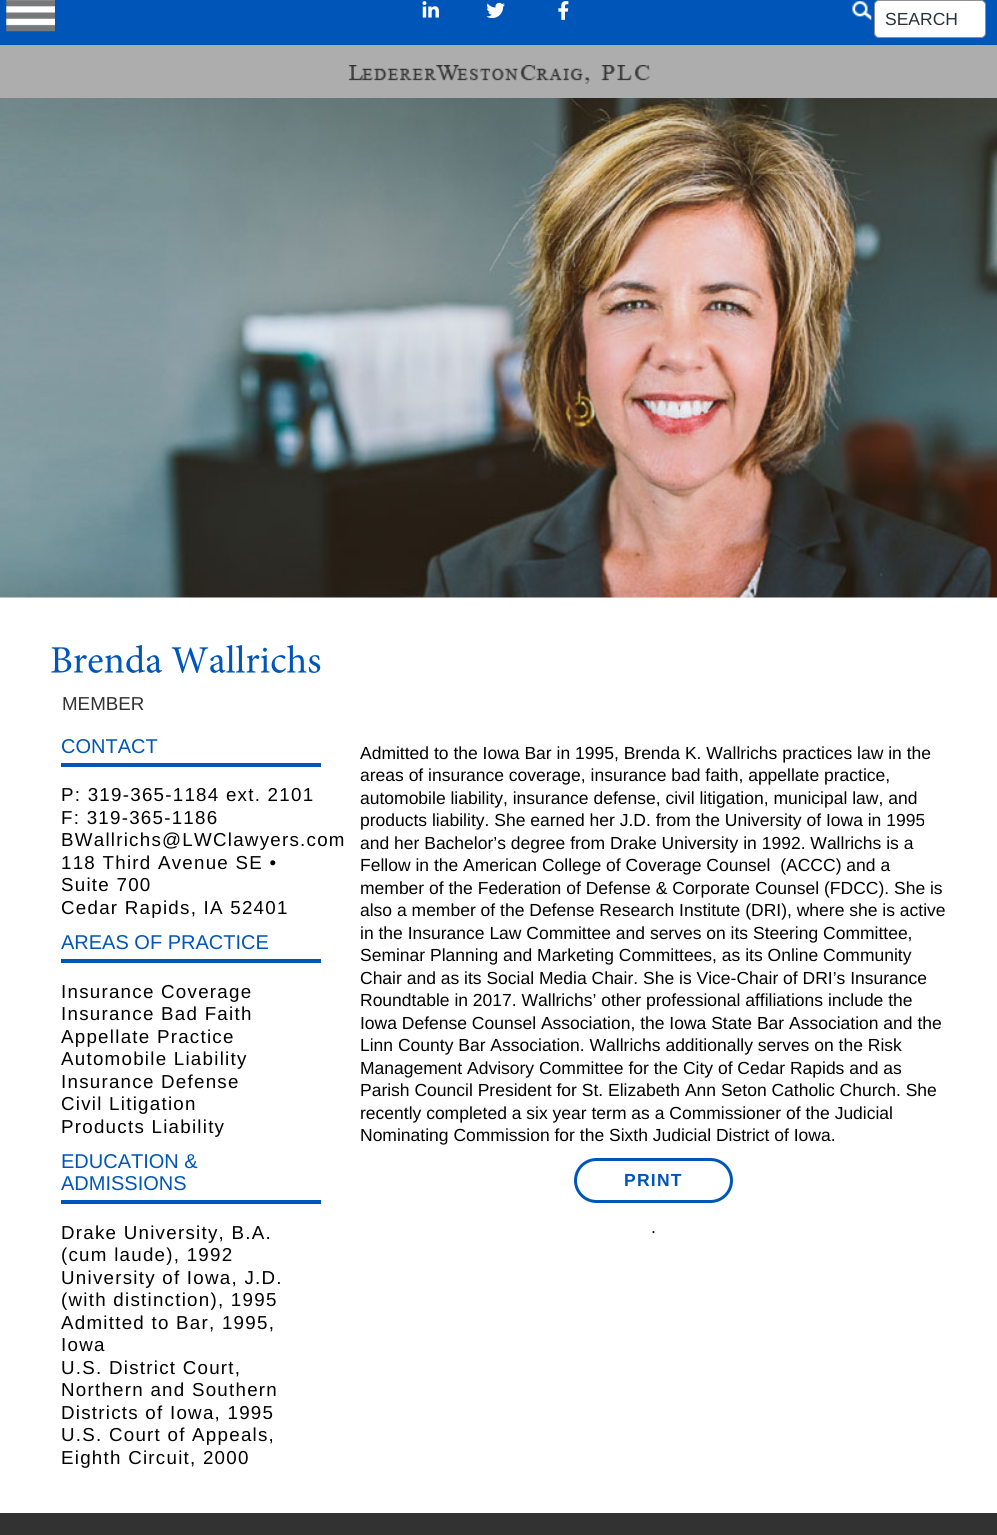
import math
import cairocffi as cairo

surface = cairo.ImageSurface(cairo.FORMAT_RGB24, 997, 1535)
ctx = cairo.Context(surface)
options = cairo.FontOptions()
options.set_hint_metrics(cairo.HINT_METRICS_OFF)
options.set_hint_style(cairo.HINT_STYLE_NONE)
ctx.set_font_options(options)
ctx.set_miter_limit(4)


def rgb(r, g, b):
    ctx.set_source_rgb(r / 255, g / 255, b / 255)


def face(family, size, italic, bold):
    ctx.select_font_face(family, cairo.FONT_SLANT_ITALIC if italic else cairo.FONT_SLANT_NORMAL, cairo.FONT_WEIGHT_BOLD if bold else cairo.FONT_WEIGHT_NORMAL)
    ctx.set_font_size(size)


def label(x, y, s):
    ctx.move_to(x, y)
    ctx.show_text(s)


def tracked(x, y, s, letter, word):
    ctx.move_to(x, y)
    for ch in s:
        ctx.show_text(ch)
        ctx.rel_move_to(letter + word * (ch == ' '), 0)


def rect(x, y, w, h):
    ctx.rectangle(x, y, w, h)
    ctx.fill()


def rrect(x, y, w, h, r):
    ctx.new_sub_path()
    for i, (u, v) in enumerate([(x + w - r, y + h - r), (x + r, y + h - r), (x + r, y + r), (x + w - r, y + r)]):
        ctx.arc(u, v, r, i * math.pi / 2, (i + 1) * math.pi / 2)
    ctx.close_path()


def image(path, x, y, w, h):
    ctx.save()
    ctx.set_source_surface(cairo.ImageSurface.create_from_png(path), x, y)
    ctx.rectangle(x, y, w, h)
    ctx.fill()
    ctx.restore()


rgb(255, 255, 255)
ctx.paint()
rgb(0, 86, 184)
rect(0, 0, 997, 45)
image('image0.png', 6, 0, 49, 32)
image('image1.png', 422, 1, 17, 17)
image('image2.png', 486, 2, 19, 17)
image('image3.png', 558, 1, 11, 19)
image('image4.png', 852, 1, 20, 20)
rgb(255, 255, 255)
rrect(874.5, 0.5, 111, 37, 4.5)
ctx.fill_preserve()
rgb(140, 143, 148)
ctx.set_line_width(1)
ctx.stroke()
face('Liberation Sans', 17.5, 0, 0)
rgb(44, 51, 56)
label(885, 25, 'SEARCH')
rgb(173, 173, 173)
rect(0, 45, 997, 53)
image('image5.png', 348, 65, 302, 19)
image('image6.png', 0, 98, 997, 500)
image('image7.png', 51, 645, 270, 28)
face('Liberation Sans', 18.75, 0, 0)
rgb(50, 50, 50)
label(62, 710, 'MEMBER')
rgb(0, 86, 184)
rect(61, 763, 260, 4)
face('Liberation Sans', 20, 0, 0)
label(61, 753, 'CONTACT')
face('Liberation Sans', 18.75, 0, 0)
rgb(0, 0, 0)
tracked(61, 801, 'P: 319-365-1184 ext. 2101', 1.25, 0)
tracked(61, 824, 'F: 319-365-1186', 1.25, 0)
tracked(61, 846, 'BWallrichs@LWClawyers.com', 1.25, 0)
tracked(61, 869, '118 Third Avenue SE •', 1.25, 0)
tracked(61, 891, 'Suite 700', 1.25, 0)
tracked(61, 914, 'Cedar Rapids, IA 52401', 1.25, 0)
rgb(0, 86, 184)
rect(61, 959, 260, 4)
face('Liberation Sans', 20, 0, 0)
label(61, 949, 'AREAS OF PRACTICE')
face('Liberation Sans', 18.75, 0, 0)
rgb(0, 0, 0)
tracked(61, 998, 'Insurance Coverage', 1.25, 0)
tracked(61, 1020, 'Insurance Bad Faith', 1.25, 0)
tracked(61, 1043, 'Appellate Practice', 1.25, 0)
tracked(61, 1065, 'Automobile Liability', 1.25, 0)
tracked(61, 1088, 'Insurance Defense', 1.25, 0)
tracked(61, 1110, 'Civil Litigation', 1.25, 0)
tracked(61, 1133, 'Products Liability', 1.25, 0)
rgb(0, 86, 184)
rect(61, 1200, 260, 4)
face('Liberation Sans', 20, 0, 0)
label(61, 1168, 'EDUCATION &')
label(61, 1190, 'ADMISSIONS')
face('Liberation Sans', 18.75, 0, 0)
rgb(0, 0, 0)
tracked(61, 1239, 'Drake University, B.A.', 1.25, 0)
tracked(61, 1261, '(cum laude), 1992', 1.25, 0)
tracked(61, 1284, 'University of Iowa, J.D.', 1.25, 0)
tracked(61, 1306, '(with distinction), 1995', 1.25, 0)
tracked(61, 1329, 'Admitted to Bar, 1995,', 1.25, 0)
tracked(61, 1351, 'Iowa', 1.25, 0)
tracked(61, 1374, 'U.S. District Court,', 1.25, 0)
tracked(61, 1396, 'Northern and Southern', 1.25, 0)
tracked(61, 1419, 'Districts of Iowa, 1995', 1.25, 0)
tracked(61, 1441, 'U.S. Court of Appeals,', 1.25, 0)
tracked(61, 1464, 'Eighth Circuit, 2000', 1.25, 0)
face('Liberation Sans', 17.5, 0, 0)
label(360, 759, 'Admitted to the Iowa Bar in 1995, Brenda K. Wallrichs practices law in the')
label(360, 781, 'areas of insurance coverage, insurance bad faith, appellate practice,')
label(360, 804, 'automobile liability, insurance defense, civil litigation, municipal law, and')
label(360, 826, 'products liability. She earned her J.D. from the University of Iowa in 1995')
label(360, 849, 'and her Bachelor’s degree from Drake University in 1992. Wallrichs is a')
label(360, 871, 'Fellow in the American College of Coverage Counsel  (ACCC) and a')
label(360, 894, 'member of the Federation of Defense & Corporate Counsel (FDCC). She is')
label(360, 916, 'also a member of the Defense Research Institute (DRI), where she is active')
label(360, 939, 'in the Insurance Law Committee and serves on its Steering Committee,')
label(360, 961, 'Seminar Planning and Marketing Committees, as its Online Community')
label(360, 984, 'Chair and as its Social Media Chair. She is Vice-Chair of DRI’s Insurance')
label(360, 1006, 'Roundtable in 2017. Wallrichs’ other professional affiliations include the')
label(360, 1029, 'Iowa Defense Counsel Association, the Iowa State Bar Association and the')
label(360, 1051, 'Linn County Bar Association. Wallrichs additionally serves on the Risk')
label(360, 1074, 'Management Advisory Committee for the City of Cedar Rapids and as')
label(360, 1096, 'Parish Council President for St. Elizabeth Ann Seton Catholic Church. She')
label(360, 1119, 'recently completed a six year term as a Commissioner of the Judicial')
label(360, 1141, 'Nominating Commission for the Sixth Judicial District of Iowa.')
rrect(575.5, 1159.5, 156, 42, 21)
rgb(0, 86, 184)
ctx.set_line_width(3)
ctx.stroke()
face('Liberation Sans', 17.5, 0, 1)
tracked(624, 1186, 'PRINT', 1.25, 0)
face('Liberation Sans', 17.5, 0, 0)
rgb(0, 0, 0)
label(651, 1233, '.')
rgb(50, 50, 50)
rect(0, 1513, 997, 22)
surface.write_to_png('render.png')
